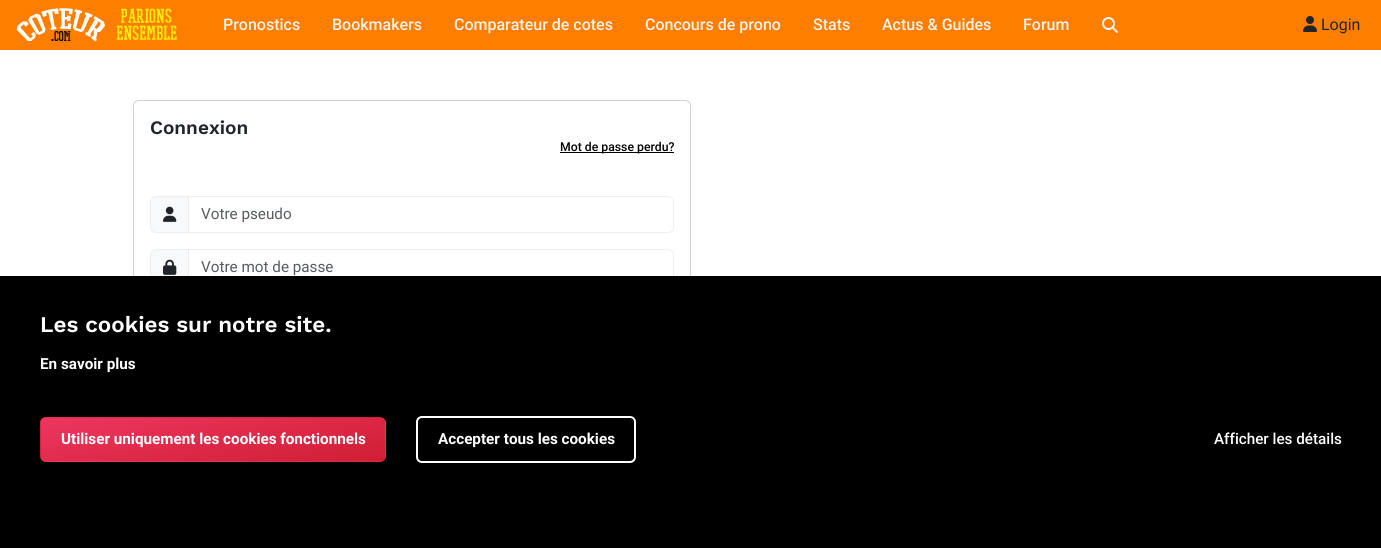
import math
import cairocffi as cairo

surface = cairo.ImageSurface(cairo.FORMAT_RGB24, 1381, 548)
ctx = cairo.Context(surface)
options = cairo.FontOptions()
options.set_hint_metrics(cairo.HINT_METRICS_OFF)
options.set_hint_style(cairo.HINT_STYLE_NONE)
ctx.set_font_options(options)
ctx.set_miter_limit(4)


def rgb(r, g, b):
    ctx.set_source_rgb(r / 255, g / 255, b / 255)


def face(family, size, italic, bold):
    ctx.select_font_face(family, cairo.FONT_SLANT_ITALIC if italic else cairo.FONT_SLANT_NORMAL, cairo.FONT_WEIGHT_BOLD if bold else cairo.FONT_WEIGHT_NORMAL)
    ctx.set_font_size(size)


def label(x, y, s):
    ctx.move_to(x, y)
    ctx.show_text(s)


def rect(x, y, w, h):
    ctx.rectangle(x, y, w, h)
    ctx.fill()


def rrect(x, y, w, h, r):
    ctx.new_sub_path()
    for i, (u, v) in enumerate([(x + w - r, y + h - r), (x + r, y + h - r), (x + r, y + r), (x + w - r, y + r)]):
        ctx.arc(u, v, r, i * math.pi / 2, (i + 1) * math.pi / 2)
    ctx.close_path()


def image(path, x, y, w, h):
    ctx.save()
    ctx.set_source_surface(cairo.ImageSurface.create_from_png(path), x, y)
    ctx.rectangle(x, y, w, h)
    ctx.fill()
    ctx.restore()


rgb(255, 255, 255)
ctx.paint()
rgb(255, 126, 0)
rect(0, 0, 1381, 50)
image('image0.png', 16, 8, 161, 34)
face('Roboto Medium', 16, 0, 0)
rgb(245, 243, 238)
label(223, 30, 'Pronostics')
label(332, 30, 'Bookmakers')
label(454, 30, 'Comparateur de cotes')
label(645, 30, 'Concours de prono')
label(813, 30, 'Stats')
label(882, 30, 'Actus & Guides')
label(1023, 30, 'Forum')
image('image1.png', 1102, 17, 16, 16)
image('image2.png', 1303, 16, 14, 16)
face('Roboto', 16, 0, 0)
rgb(33, 37, 41)
label(1321, 30, 'Login')
rrect(133.5, 100.5, 557, 345, 5.5)
rgb(210, 210, 210)
ctx.set_line_width(1)
ctx.stroke()
face('Work Sans SemiBold', 19, 0, 0)
rgb(33, 37, 41)
label(150, 134, 'Connexion')
rgb(0, 0, 0)
rect(560, 152, 114, 1)
face('Roboto Medium', 12.25, 0, 0)
label(560, 151, 'Mot de passe perdu?')
rgb(248, 249, 250)
ctx.new_path()
ctx.move_to(156, 196.5)
ctx.line_to(188.5, 196.5)
ctx.line_to(188.5, 232.5)
ctx.line_to(156, 232.5)
ctx.curve_to(153, 232.5, 150.5, 230, 150.5, 227)
ctx.line_to(150.5, 202)
ctx.curve_to(150.5, 199, 153, 196.5, 156, 196.5)
ctx.close_path()
ctx.fill_preserve()
rgb(239, 239, 239)
ctx.stroke()
image('image3.png', 163, 206, 14, 16)
ctx.new_path()
ctx.move_to(188.5, 196.5)
ctx.line_to(668, 196.5)
ctx.curve_to(671, 196.5, 673.5, 199, 673.5, 202)
ctx.line_to(673.5, 227)
ctx.curve_to(673.5, 230, 671, 232.5, 668, 232.5)
ctx.line_to(188.5, 232.5)
ctx.close_path()
ctx.set_source_rgba(0.929, 0.929, 0.929, 0.84)
ctx.stroke()
face('Roboto', 15.25, 0, 0)
rgb(89, 92, 95)
label(201, 219, 'Votre pseudo')
rgb(248, 249, 250)
ctx.new_path()
ctx.move_to(156, 249.5)
ctx.line_to(188.5, 249.5)
ctx.line_to(188.5, 285.5)
ctx.line_to(156, 285.5)
ctx.curve_to(153, 285.5, 150.5, 283, 150.5, 280)
ctx.line_to(150.5, 255)
ctx.curve_to(150.5, 252, 153, 249.5, 156, 249.5)
ctx.close_path()
ctx.fill_preserve()
rgb(239, 239, 239)
ctx.stroke()
image('image4.png', 163, 259, 14, 16)
ctx.new_path()
ctx.move_to(188.5, 249.5)
ctx.line_to(668, 249.5)
ctx.curve_to(671, 249.5, 673.5, 252, 673.5, 255)
ctx.line_to(673.5, 280)
ctx.curve_to(673.5, 283, 671, 285.5, 668, 285.5)
ctx.line_to(188.5, 285.5)
ctx.close_path()
ctx.set_source_rgba(0.929, 0.929, 0.929, 0.84)
ctx.stroke()
rgb(89, 92, 95)
label(201, 272, 'Votre mot de passe')
rgb(0, 0, 0)
rect(0, 276, 1381, 272)
face('Work Sans SemiBold', 22.4, 0, 0)
rgb(255, 255, 255)
label(40, 332, 'Les cookies sur notre site.')
face('Roboto', 15.25, 0, 1)
label(40, 369, 'En savoir plus')
ctx.save()
rrect(40, 417, 346, 45, 6)
ctx.clip()
gradient = cairo.LinearGradient(223, 449, 203, 344)
gradient.add_color_stop_rgba(0, 0.812, 0.118, 0.204, 1)
gradient.add_color_stop_rgba(1, 0.933, 0.212, 0.373, 1)
ctx.set_source(gradient)
rect(41, 417, 344, 1)
gradient = cairo.LinearGradient(-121, 492, -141, 387)
gradient.add_color_stop_rgba(0, 0.812, 0.118, 0.204, 1)
gradient.add_color_stop_rgba(1, 0.933, 0.212, 0.373, 1)
ctx.set_source(gradient)
rect(40, 418, 1, 43)
gradient = cairo.LinearGradient(223, 492, 203, 387)
gradient.add_color_stop_rgba(0, 0.812, 0.118, 0.204, 1)
gradient.add_color_stop_rgba(1, 0.933, 0.212, 0.373, 1)
ctx.set_source(gradient)
rect(41, 418, 344, 43)
gradient = cairo.LinearGradient(567, 492, 547, 387)
gradient.add_color_stop_rgba(0, 0.812, 0.118, 0.204, 1)
gradient.add_color_stop_rgba(1, 0.933, 0.212, 0.373, 1)
ctx.set_source(gradient)
rect(385, 418, 1, 43)
gradient = cairo.LinearGradient(223, 535, 203, 430)
gradient.add_color_stop_rgba(0, 0.812, 0.118, 0.204, 1)
gradient.add_color_stop_rgba(1, 0.933, 0.212, 0.373, 1)
ctx.set_source(gradient)
rect(41, 461, 344, 1)
ctx.restore()
label(61, 444, 'Utiliser uniquement les cookies fonctionnels')
rrect(417, 417, 218, 45, 5)
ctx.set_line_width(2)
ctx.stroke()
label(438, 444, 'Accepter tous les cookies')
face('Roboto Medium', 15.25, 0, 0)
label(1214, 444, 'Afficher les détails')
surface.write_to_png('render.png')
